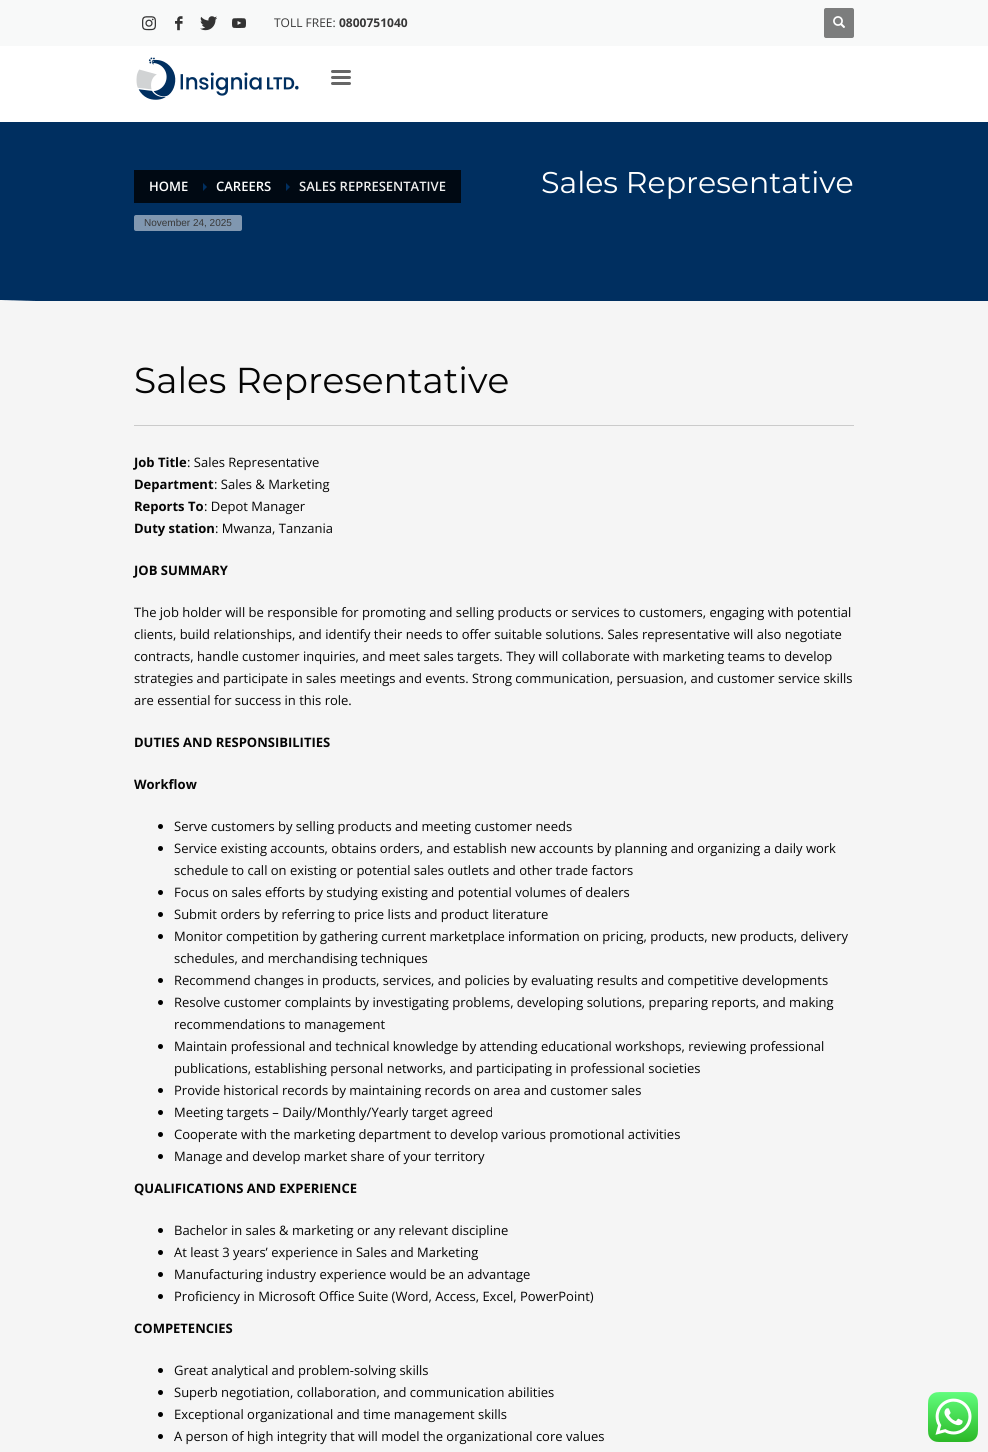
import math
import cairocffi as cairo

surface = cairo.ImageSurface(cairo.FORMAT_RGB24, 988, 1452)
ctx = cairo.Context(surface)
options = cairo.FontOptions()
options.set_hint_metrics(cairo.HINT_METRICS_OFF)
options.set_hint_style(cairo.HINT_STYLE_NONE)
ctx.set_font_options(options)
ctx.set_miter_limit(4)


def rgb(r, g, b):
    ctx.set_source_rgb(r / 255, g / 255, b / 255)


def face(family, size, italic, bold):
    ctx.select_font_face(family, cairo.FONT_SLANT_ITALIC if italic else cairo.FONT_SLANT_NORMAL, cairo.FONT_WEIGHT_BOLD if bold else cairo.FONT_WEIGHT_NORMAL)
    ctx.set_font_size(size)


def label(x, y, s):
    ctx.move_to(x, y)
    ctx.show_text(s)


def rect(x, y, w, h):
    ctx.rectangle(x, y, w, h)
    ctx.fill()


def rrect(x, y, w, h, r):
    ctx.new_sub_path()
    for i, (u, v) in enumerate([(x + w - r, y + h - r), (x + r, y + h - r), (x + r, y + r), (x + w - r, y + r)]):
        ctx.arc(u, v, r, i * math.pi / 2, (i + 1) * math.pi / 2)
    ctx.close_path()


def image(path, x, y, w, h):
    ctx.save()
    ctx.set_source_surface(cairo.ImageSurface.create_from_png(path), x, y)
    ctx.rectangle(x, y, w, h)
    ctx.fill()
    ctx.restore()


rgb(245, 245, 245)
ctx.paint()
rgb(255, 255, 255)
rect(0, 46, 988, 76)
rgb(248, 249, 249)
rect(0, 0, 988, 46)
image('image0.png', 142, 16, 14, 15)
image('image1.png', 175, 16, 8, 15)
image('image2.png', 200, 16, 17, 15)
image('image3.png', 232, 18, 14, 10)
face('Open Sans', 12, 0, 0)
rgb(56, 56, 56)
label(274, 27, 'TOLL FREE:')
face('Open Sans', 12, 0, 1)
label(339, 27, '0800751040')
rgb(124, 125, 125)
rrect(824, 8, 30, 30, 2)
ctx.fill()
image('image4.png', 833, 16, 12, 12)
image('image5.png', 136, 57, 163, 43)
rgb(102, 102, 102)
rrect(331, 70, 20, 3, 1.5)
ctx.fill()
rrect(331, 76, 20, 3, 1.5)
ctx.fill()
rrect(331, 82, 20, 3, 1.5)
ctx.fill()
rgb(0, 47, 96)
rect(0, 122, 988, 178)
rgb(0, 9, 19)
rect(134, 170, 327, 33)
face('Open Sans SemiBold', 13, 0, 0)
rgb(255, 255, 255)
label(149, 191, 'HOME')
rgb(0, 47, 96)
ctx.new_path()
ctx.move_to(203, 191)
ctx.line_to(203, 183)
ctx.line_to(207, 187)
ctx.close_path()
ctx.fill()
rgb(255, 255, 255)
label(216, 191, 'CAREERS')
rgb(0, 47, 96)
ctx.new_path()
ctx.move_to(286, 191)
ctx.line_to(286, 183)
ctx.line_to(290, 187)
ctx.close_path()
ctx.fill()
rgb(238, 238, 238)
label(299, 191, 'SALES REPRESENTATIVE')
rgb(128, 151, 176)
rrect(134, 215, 108, 16, 2)
ctx.fill()
face('Liberation Sans', 10, 0, 0)
rgb(56, 56, 56)
label(144, 226, 'November 24, 2025')
face('Montserrat', 30, 0, 0)
rgb(255, 255, 255)
label(541, 193, 'Sales Representative')
ctx.save()
ctx.rectangle(0, 273, 988, 28)
ctx.clip()
rgb(0, 47, 96)
ctx.new_path()
ctx.move_to(0, 301)
ctx.line_to(988, 273)
ctx.line_to(988, 301)
ctx.line_to(0, 329)
ctx.close_path()
ctx.fill()
ctx.restore()
rgb(203, 203, 203)
rect(134, 425, 720, 1)
face('Montserrat', 36, 0, 0)
rgb(5, 5, 5)
label(134, 393, 'Sales Representative')
face('Open Sans', 13, 0, 1)
label(134, 467, 'Job Title')
face('Open Sans', 13, 0, 0)
label(187, 467, ': Sales Representative')
face('Open Sans', 13, 0, 1)
label(134, 489, 'Department')
face('Open Sans', 13, 0, 0)
label(214, 489, ': Sales & Marketing')
face('Open Sans', 13, 0, 1)
label(134, 511, 'Reports To')
face('Open Sans', 13, 0, 0)
label(204, 511, ': Depot Manager')
face('Open Sans', 13, 0, 1)
label(134, 533, 'Duty station')
face('Open Sans', 13, 0, 0)
label(215, 533, ': Mwanza, Tanzania')
face('Open Sans', 13, 0, 1)
label(134, 575, 'JOB SUMMARY')
face('Open Sans', 13, 0, 0)
label(134, 617, 'The job holder will be responsible for promoting and selling products or services to customers, engaging with potential')
label(134, 639, 'clients, build relationships, and identify their needs to offer suitable solutions. Sales representative will also negotiate')
label(134, 661, 'contracts, handle customer inquiries, and meet sales targets. They will collaborate with marketing teams to develop')
label(134, 683, 'strategies and participate in sales meetings and events. Strong communication, persuasion, and customer service skills')
label(134, 705, 'are essential for success in this role.')
face('Open Sans', 13, 0, 1)
label(134, 747, 'DUTIES AND RESPONSIBILITIES')
label(134, 789, 'Workflow')
rgb(0, 0, 0)
ctx.new_path()
ctx.arc(160.5, 826.5, 2.5, 0, 2 * math.pi)
ctx.fill()
face('Open Sans', 13, 0, 0)
rgb(5, 5, 5)
label(174, 831, 'Serve customers by selling products and meeting customer needs')
rgb(0, 0, 0)
ctx.new_path()
ctx.arc(160.5, 848.5, 2.5, 0, 2 * math.pi)
ctx.fill()
rgb(5, 5, 5)
label(174, 853, 'Service existing accounts, obtains orders, and establish new accounts by planning and organizing a daily work')
label(174, 875, 'schedule to call on existing or potential sales outlets and other trade factors')
rgb(0, 0, 0)
ctx.new_path()
ctx.arc(160.5, 892.5, 2.5, 0, 2 * math.pi)
ctx.fill()
rgb(5, 5, 5)
label(174, 897, 'Focus on sales efforts by studying existing and potential volumes of dealers')
rgb(0, 0, 0)
ctx.new_path()
ctx.arc(160.5, 914.5, 2.5, 0, 2 * math.pi)
ctx.fill()
rgb(5, 5, 5)
label(174, 919, 'Submit orders by referring to price lists and product literature')
rgb(0, 0, 0)
ctx.new_path()
ctx.arc(160.5, 936.5, 2.5, 0, 2 * math.pi)
ctx.fill()
rgb(5, 5, 5)
label(174, 941, 'Monitor competition by gathering current marketplace information on pricing, products, new products, delivery')
label(174, 963, 'schedules, and merchandising techniques')
rgb(0, 0, 0)
ctx.new_path()
ctx.arc(160.5, 980.5, 2.5, 0, 2 * math.pi)
ctx.fill()
rgb(5, 5, 5)
label(174, 985, 'Recommend changes in products, services, and policies by evaluating results and competitive developments')
rgb(0, 0, 0)
ctx.new_path()
ctx.arc(160.5, 1002.5, 2.5, 0, 2 * math.pi)
ctx.fill()
rgb(5, 5, 5)
label(174, 1007, 'Resolve customer complaints by investigating problems, developing solutions, preparing reports, and making')
label(174, 1029, 'recommendations to management')
rgb(0, 0, 0)
ctx.new_path()
ctx.arc(160.5, 1046.5, 2.5, 0, 2 * math.pi)
ctx.fill()
rgb(5, 5, 5)
label(174, 1051, 'Maintain professional and technical knowledge by attending educational workshops, reviewing professional')
label(174, 1073, 'publications, establishing personal networks, and participating in professional societies')
rgb(0, 0, 0)
ctx.new_path()
ctx.arc(160.5, 1090.5, 2.5, 0, 2 * math.pi)
ctx.fill()
rgb(5, 5, 5)
label(174, 1095, 'Provide historical records by maintaining records on area and customer sales')
rgb(0, 0, 0)
ctx.new_path()
ctx.arc(160.5, 1112.5, 2.5, 0, 2 * math.pi)
ctx.fill()
rgb(5, 5, 5)
label(174, 1117, 'Meeting targets – Daily/Monthly/Yearly target agreed')
rgb(0, 0, 0)
ctx.new_path()
ctx.arc(160.5, 1134.5, 2.5, 0, 2 * math.pi)
ctx.fill()
rgb(5, 5, 5)
label(174, 1139, 'Cooperate with the marketing department to develop various promotional activities')
rgb(0, 0, 0)
ctx.new_path()
ctx.arc(160.5, 1156.5, 2.5, 0, 2 * math.pi)
ctx.fill()
rgb(5, 5, 5)
label(174, 1161, 'Manage and develop market share of your territory')
face('Open Sans', 13, 0, 1)
label(134, 1193, 'QUALIFICATIONS AND EXPERIENCE')
rgb(0, 0, 0)
ctx.new_path()
ctx.arc(160.5, 1230.5, 2.5, 0, 2 * math.pi)
ctx.fill()
face('Open Sans', 13, 0, 0)
rgb(5, 5, 5)
label(174, 1235, 'Bachelor in sales & marketing or any relevant discipline')
rgb(0, 0, 0)
ctx.new_path()
ctx.arc(160.5, 1252.5, 2.5, 0, 2 * math.pi)
ctx.fill()
rgb(5, 5, 5)
label(174, 1257, 'At least 3 years’ experience in Sales and Marketing')
rgb(0, 0, 0)
ctx.new_path()
ctx.arc(160.5, 1274.5, 2.5, 0, 2 * math.pi)
ctx.fill()
rgb(5, 5, 5)
label(174, 1279, 'Manufacturing industry experience would be an advantage')
rgb(0, 0, 0)
ctx.new_path()
ctx.arc(160.5, 1296.5, 2.5, 0, 2 * math.pi)
ctx.fill()
rgb(5, 5, 5)
label(174, 1301, 'Proficiency in Microsoft Office Suite (Word, Access, Excel, PowerPoint)')
face('Open Sans', 13, 0, 1)
label(134, 1333, 'COMPETENCIES')
rgb(0, 0, 0)
ctx.new_path()
ctx.arc(160.5, 1370.5, 2.5, 0, 2 * math.pi)
ctx.fill()
face('Open Sans', 13, 0, 0)
rgb(5, 5, 5)
label(174, 1375, 'Great analytical and problem-solving skills')
rgb(0, 0, 0)
ctx.new_path()
ctx.arc(160.5, 1392.5, 2.5, 0, 2 * math.pi)
ctx.fill()
rgb(5, 5, 5)
label(174, 1397, 'Superb negotiation, collaboration, and communication abilities')
rgb(0, 0, 0)
ctx.new_path()
ctx.arc(160.5, 1414.5, 2.5, 0, 2 * math.pi)
ctx.fill()
rgb(5, 5, 5)
label(174, 1419, 'Exceptional organizational and time management skills')
rgb(0, 0, 0)
ctx.new_path()
ctx.arc(160.5, 1436.5, 2.5, 0, 2 * math.pi)
ctx.fill()
rgb(5, 5, 5)
label(174, 1441, 'A person of high integrity that will model the organizational core values')
image('image6.png', 928, 1392, 50, 50)
surface.write_to_png('render.png')
